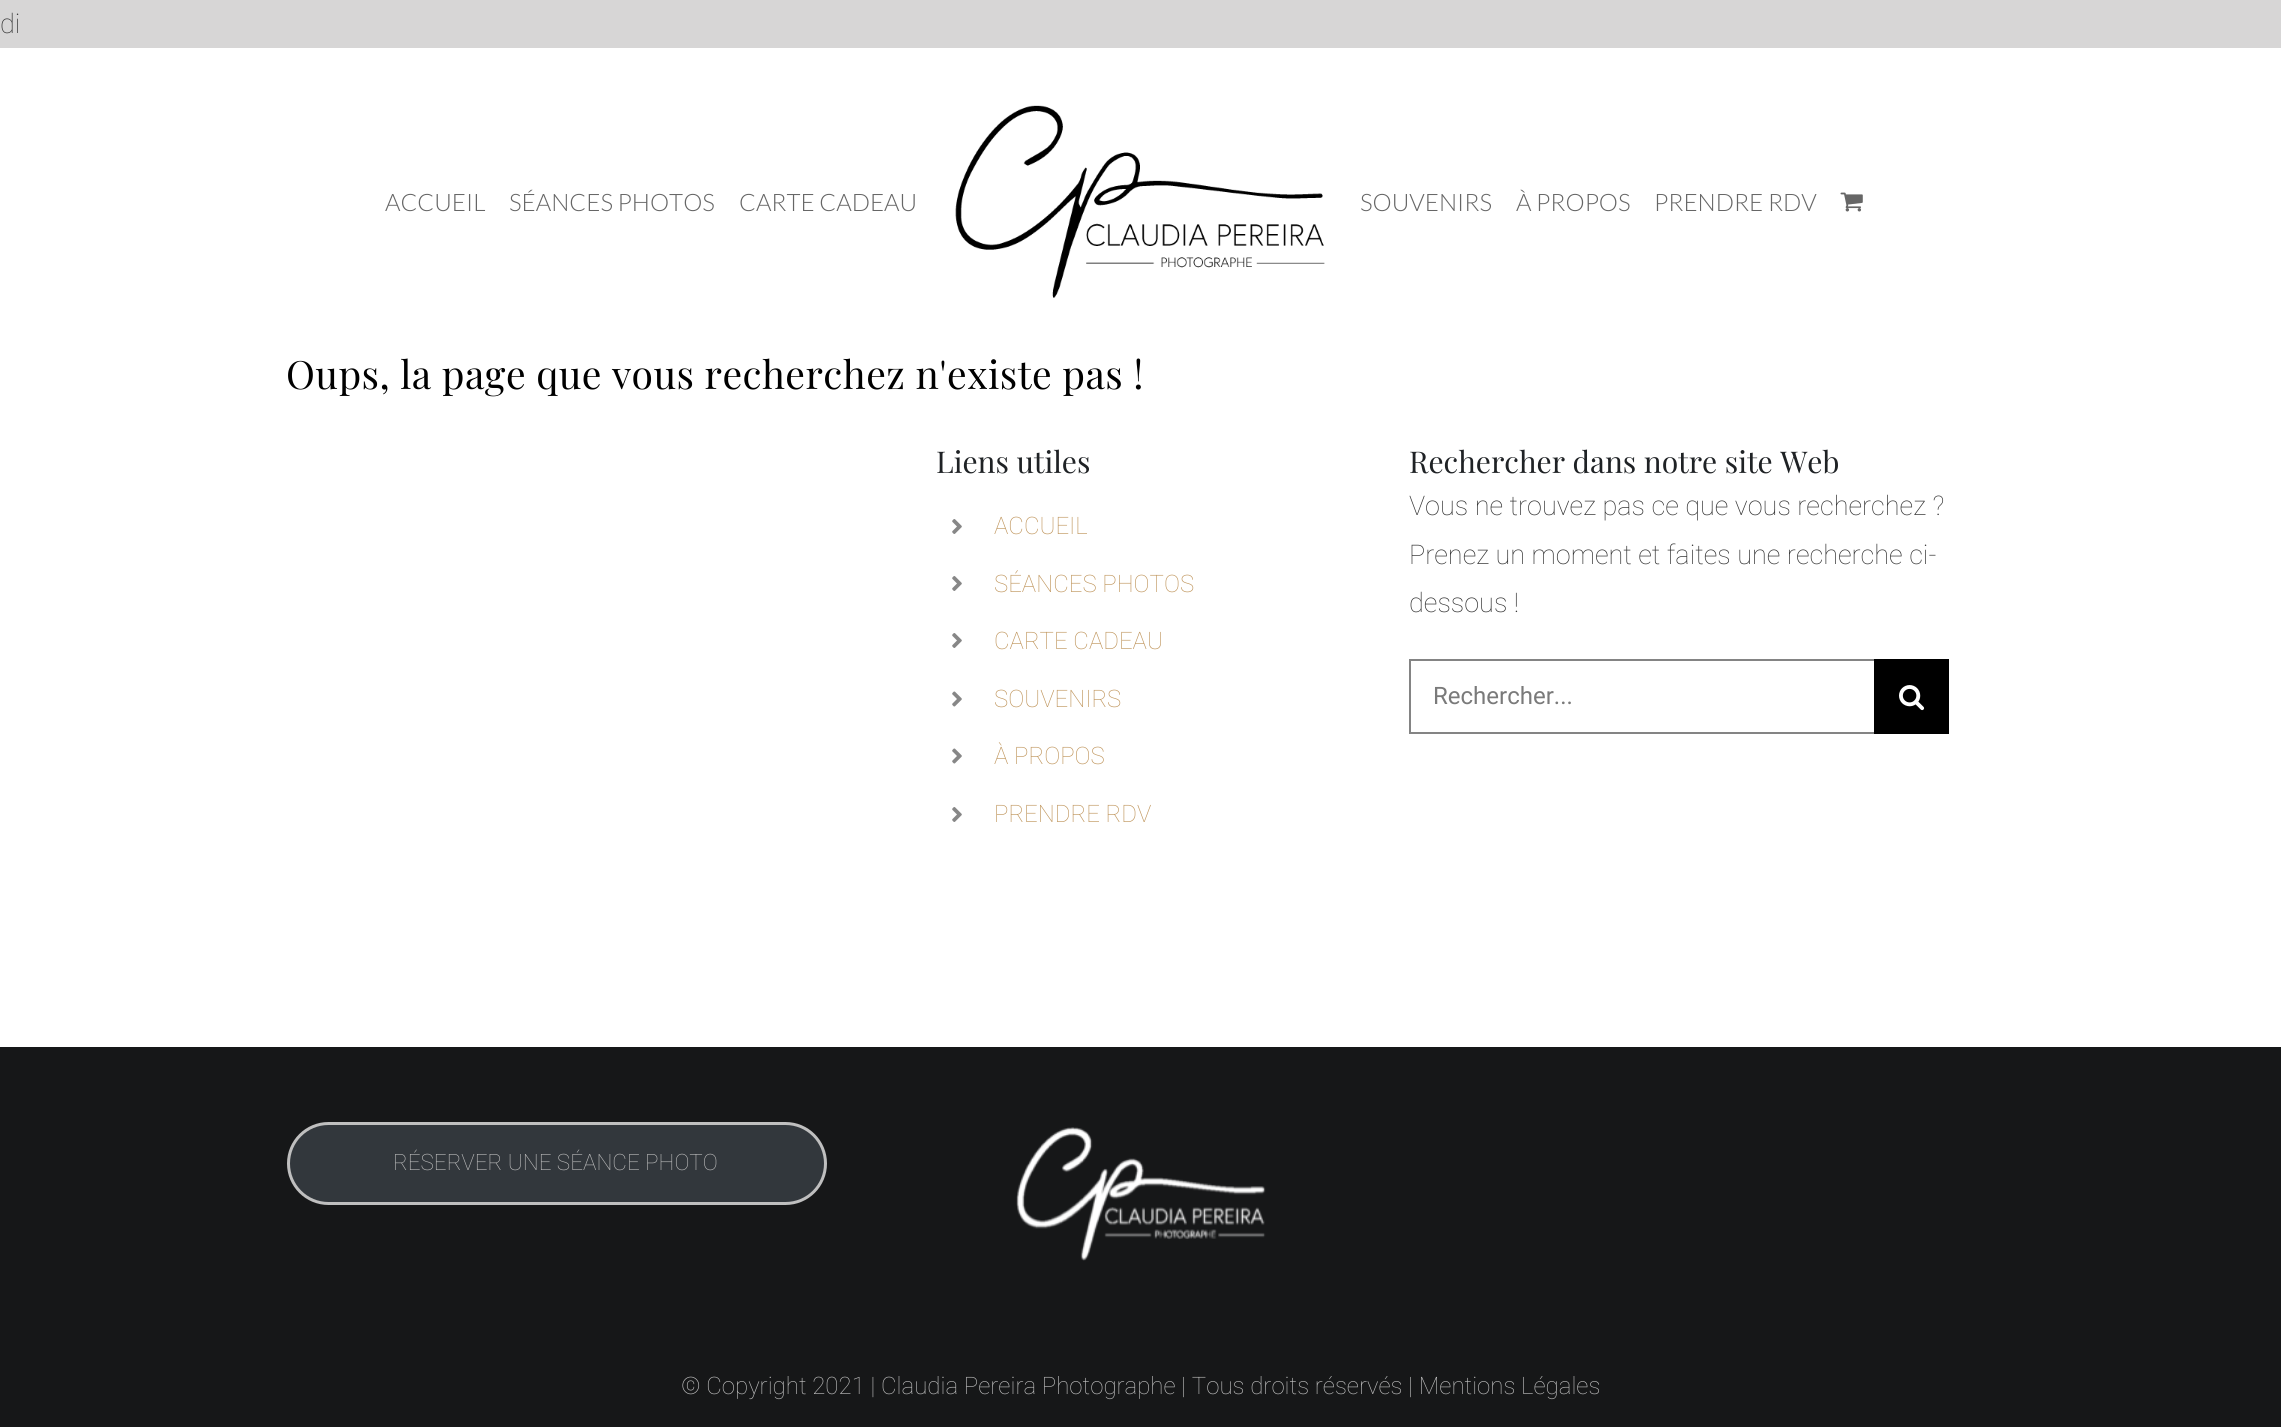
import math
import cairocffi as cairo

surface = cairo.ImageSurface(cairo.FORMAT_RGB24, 2281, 1427)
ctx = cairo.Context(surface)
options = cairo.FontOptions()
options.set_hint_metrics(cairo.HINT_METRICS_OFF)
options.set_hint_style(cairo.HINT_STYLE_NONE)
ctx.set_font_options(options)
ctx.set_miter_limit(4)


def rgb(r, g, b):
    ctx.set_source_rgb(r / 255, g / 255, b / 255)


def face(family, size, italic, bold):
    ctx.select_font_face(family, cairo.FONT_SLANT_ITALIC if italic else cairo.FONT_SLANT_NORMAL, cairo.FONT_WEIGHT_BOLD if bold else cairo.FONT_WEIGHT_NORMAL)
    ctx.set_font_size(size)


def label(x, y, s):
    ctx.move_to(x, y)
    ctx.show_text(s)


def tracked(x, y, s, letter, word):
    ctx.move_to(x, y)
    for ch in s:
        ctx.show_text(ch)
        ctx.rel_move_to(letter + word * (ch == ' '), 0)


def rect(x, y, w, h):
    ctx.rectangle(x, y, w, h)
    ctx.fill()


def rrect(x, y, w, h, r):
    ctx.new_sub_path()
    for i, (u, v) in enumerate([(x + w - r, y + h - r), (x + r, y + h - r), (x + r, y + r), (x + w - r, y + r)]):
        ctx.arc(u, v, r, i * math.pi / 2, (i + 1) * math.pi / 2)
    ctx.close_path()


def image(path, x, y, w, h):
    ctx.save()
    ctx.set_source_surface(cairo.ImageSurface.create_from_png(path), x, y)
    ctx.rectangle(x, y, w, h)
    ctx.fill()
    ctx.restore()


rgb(215, 214, 214)
ctx.paint()
face('Roboto Thin', 27, 0, 0)
rgb(51, 51, 51)
label(0, 33, 'di')
rgb(255, 255, 255)
rect(0, 48, 2281, 999)
face('Lato Light', 24, 0, 0)
rgb(102, 102, 102)
label(385, 211, 'ACCUEIL')
label(509, 211, 'SÉANCES PHOTOS')
label(739, 211, 'CARTE CADEAU')
image('image0.png', 955, 105, 370, 193)
label(1360, 211, 'SOUVENIRS')
label(1516, 211, 'À PROPOS')
label(1654, 211, 'PRENDRE RDV')
image('image1.png', 1840, 192, 23, 20)
face('Playfair Display', 39, 0, 0)
rgb(0, 0, 0)
tracked(286, 389, 'Oups, la page que vous recherchez n\'existe pas !', 0.45, 0)
face('Playfair Display', 30, 0, 0)
rgb(31, 34, 37)
label(936, 473, 'Liens utiles')
image('image2.png', 952, 519, 10, 15)
face('Roboto Thin', 24, 0, 0)
rgb(190, 147, 89)
label(994, 534, 'ACCUEIL')
image('image2.png', 952, 576, 10, 15)
label(994, 592, 'SÉANCES PHOTOS')
image('image2.png', 952, 633, 10, 15)
label(994, 649, 'CARTE CADEAU')
image('image3.png', 952, 691, 10, 16)
label(994, 707, 'SOUVENIRS')
image('image3.png', 952, 748, 10, 16)
label(994, 764, 'À PROPOS')
image('image2.png', 952, 807, 10, 15)
label(994, 822, 'PRENDRE RDV')
face('Playfair Display', 30, 0, 0)
rgb(31, 34, 37)
label(1409, 473, 'Rechercher dans notre site Web')
face('Roboto Thin', 27, 0, 0)
rgb(51, 51, 51)
label(1409, 515, 'Vous ne trouvez pas ce que vous recherchez ?')
label(1409, 564, 'Prenez un moment et faites une recherche ci-')
label(1409, 612, 'dessous !')
rgb(132, 132, 132)
rect(1409, 659, 465, 2)
rect(1409, 732, 465, 2)
rect(1409, 659, 2, 75)
face('Roboto', 24, 0, 0)
rgb(122, 122, 122)
label(1433, 704, 'Rechercher...')
rgb(0, 0, 0)
rect(1874, 659, 75, 75)
image('image4.png', 1899, 685, 26, 26)
rgb(22, 23, 24)
rect(0, 1047, 2281, 380)
rgb(50, 55, 60)
rrect(288.5, 1123.5, 537, 80, 40)
ctx.fill_preserve()
rgb(191, 191, 191)
ctx.set_line_width(3)
ctx.stroke()
face('Roboto Thin', 22.5, 0, 0)
label(393, 1170, 'RÉSERVER UNE SÉANCE PHOTO')
image('image5.png', 1016, 1127, 250, 134)
face('Roboto Thin', 24, 0, 0)
label(681, 1394, '© Copyright 2021 | Claudia Pereira Photographe | Tous droits réservés | Mentions Légales')
surface.write_to_png('render.png')
